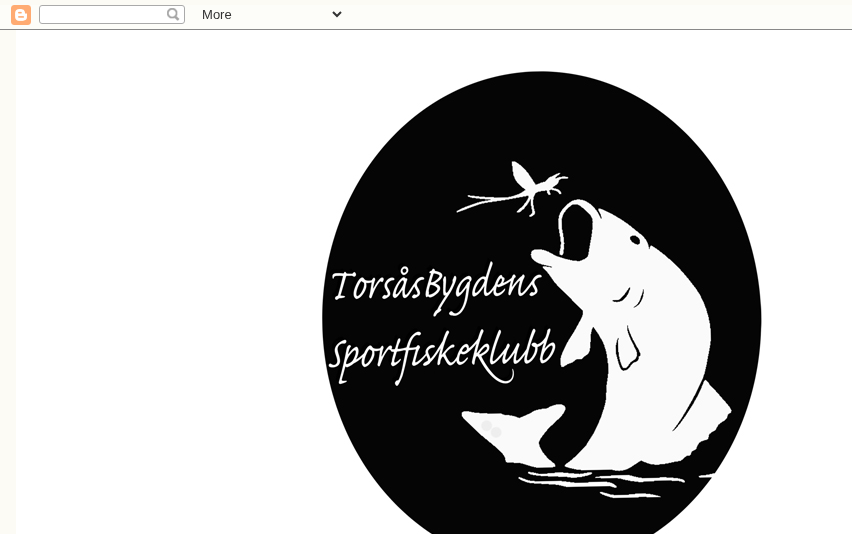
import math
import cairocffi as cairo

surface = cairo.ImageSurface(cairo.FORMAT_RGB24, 852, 534)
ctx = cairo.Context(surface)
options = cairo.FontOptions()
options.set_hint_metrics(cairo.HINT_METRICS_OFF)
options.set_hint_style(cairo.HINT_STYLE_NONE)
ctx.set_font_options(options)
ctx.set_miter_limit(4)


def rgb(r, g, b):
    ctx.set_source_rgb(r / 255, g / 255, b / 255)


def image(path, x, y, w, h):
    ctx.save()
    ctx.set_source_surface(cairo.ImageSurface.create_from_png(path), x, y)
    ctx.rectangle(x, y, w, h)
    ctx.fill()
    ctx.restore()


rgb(252, 251, 245)
ctx.paint()
image('image0.png', 0, 5, 852, 25)
image('image1.png', 16, 30, 836, 504)
surface.write_to_png('render.png')
